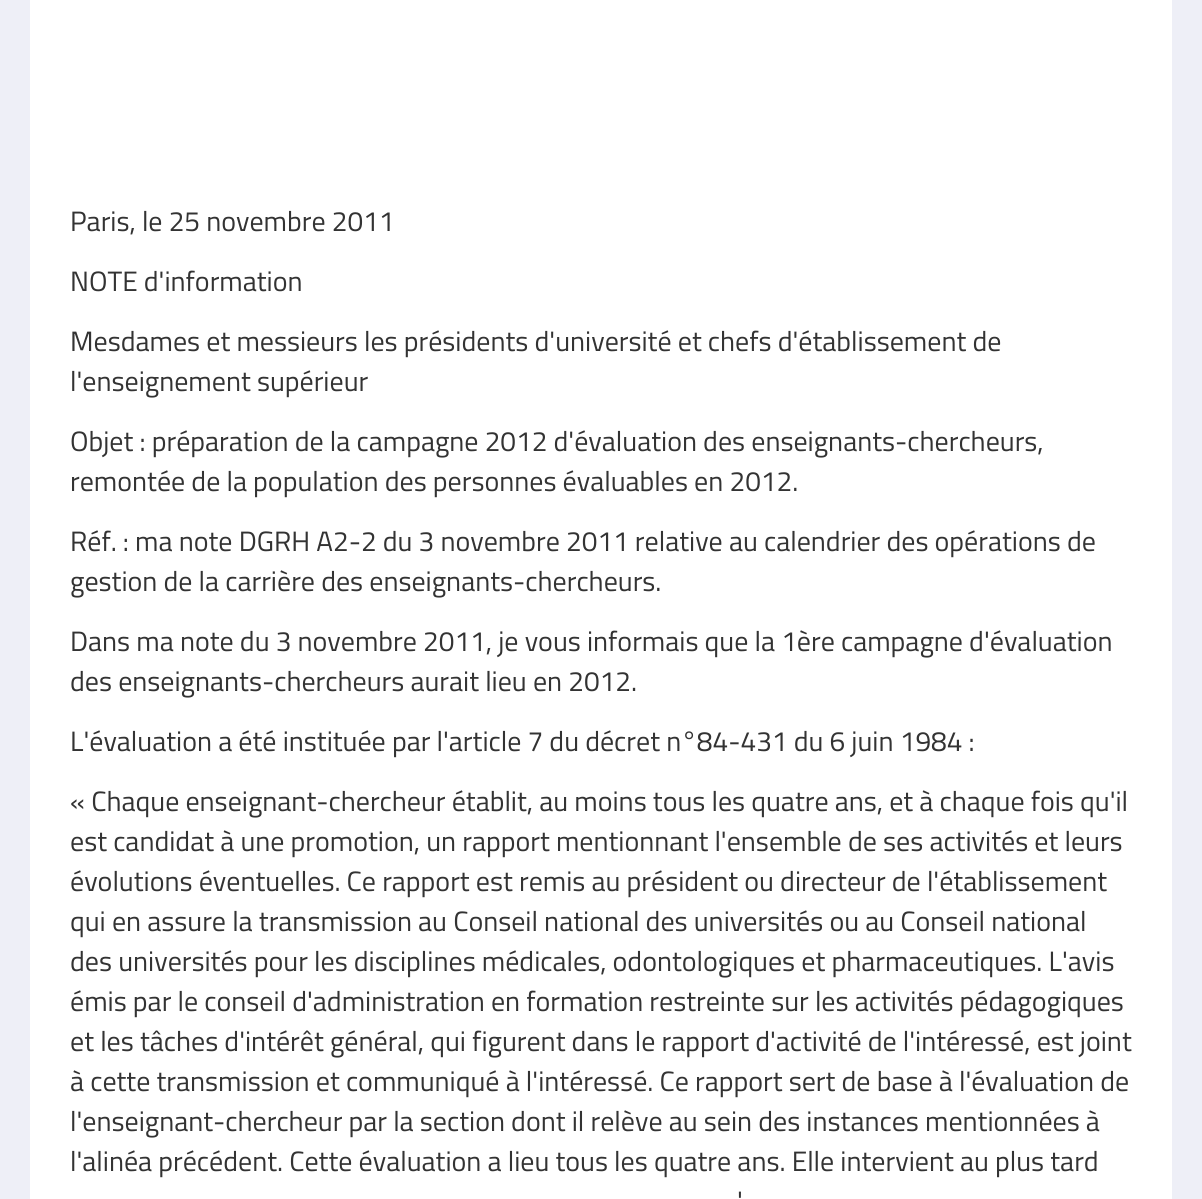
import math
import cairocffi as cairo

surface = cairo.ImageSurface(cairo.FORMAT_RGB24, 1202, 1199)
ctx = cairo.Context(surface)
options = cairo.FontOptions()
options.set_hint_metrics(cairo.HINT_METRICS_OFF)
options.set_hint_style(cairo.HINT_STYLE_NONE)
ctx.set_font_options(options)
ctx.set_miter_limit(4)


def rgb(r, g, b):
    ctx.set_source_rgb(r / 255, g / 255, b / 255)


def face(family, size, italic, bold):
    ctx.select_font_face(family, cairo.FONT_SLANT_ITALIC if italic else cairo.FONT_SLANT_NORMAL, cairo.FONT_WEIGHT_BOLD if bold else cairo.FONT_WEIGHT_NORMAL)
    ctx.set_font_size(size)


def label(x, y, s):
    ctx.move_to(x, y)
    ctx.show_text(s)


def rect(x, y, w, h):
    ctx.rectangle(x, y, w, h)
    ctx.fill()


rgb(238, 239, 247)
ctx.paint()
rgb(255, 255, 255)
rect(30, 0, 1142, 1199)
face('Titillium Web', 28, 0, 0)
rgb(51, 51, 51)
label(70, 231, 'Paris, le 25 novembre 2011')
label(70, 291, 'NOTE d\'information')
label(70, 351, 'Mesdames et messieurs les présidents d\'université et chefs d\'établissement de')
label(70, 391, 'l\'enseignement supérieur')
label(70, 451, 'Objet : préparation de la campagne 2012 d\'évaluation des enseignants-chercheurs,')
label(70, 491, 'remontée de la population des personnes évaluables en 2012.')
label(70, 551, 'Réf. : ma note DGRH A2-2 du 3 novembre 2011 relative au calendrier des opérations de')
label(70, 591, 'gestion de la carrière des enseignants-chercheurs.')
label(70, 651, 'Dans ma note du 3 novembre 2011, je vous informais que la 1ère campagne d\'évaluation')
label(70, 691, 'des enseignants-chercheurs aurait lieu en 2012.')
label(70, 751, 'L\'évaluation a été instituée par l\'article 7 du décret n°84-431 du 6 juin 1984 :')
label(70, 811, '« Chaque enseignant-chercheur établit, au moins tous les quatre ans, et à chaque fois qu\'il')
label(70, 851, 'est candidat à une promotion, un rapport mentionnant l\'ensemble de ses activités et leurs')
label(70, 891, 'évolutions éventuelles. Ce rapport est remis au président ou directeur de l\'établissement')
label(70, 931, 'qui en assure la transmission au Conseil national des universités ou au Conseil national')
label(70, 971, 'des universités pour les disciplines médicales, odontologiques et pharmaceutiques. L\'avis')
label(70, 1011, 'émis par le conseil d\'administration en formation restreinte sur les activités pédagogiques')
label(70, 1051, 'et les tâches d\'intérêt général, qui figurent dans le rapport d\'activité de l\'intéressé, est joint')
label(70, 1091, 'à cette transmission et communiqué à l\'intéressé. Ce rapport sert de base à l\'évaluation de')
label(70, 1131, 'l\'enseignant-chercheur par la section dont il relève au sein des instances mentionnées à')
label(70, 1171, 'l\'alinéa précédent. Cette évaluation a lieu tous les quatre ans. Elle intervient au plus tard')
label(737, 1211, '\'')
surface.write_to_png('render.png')
